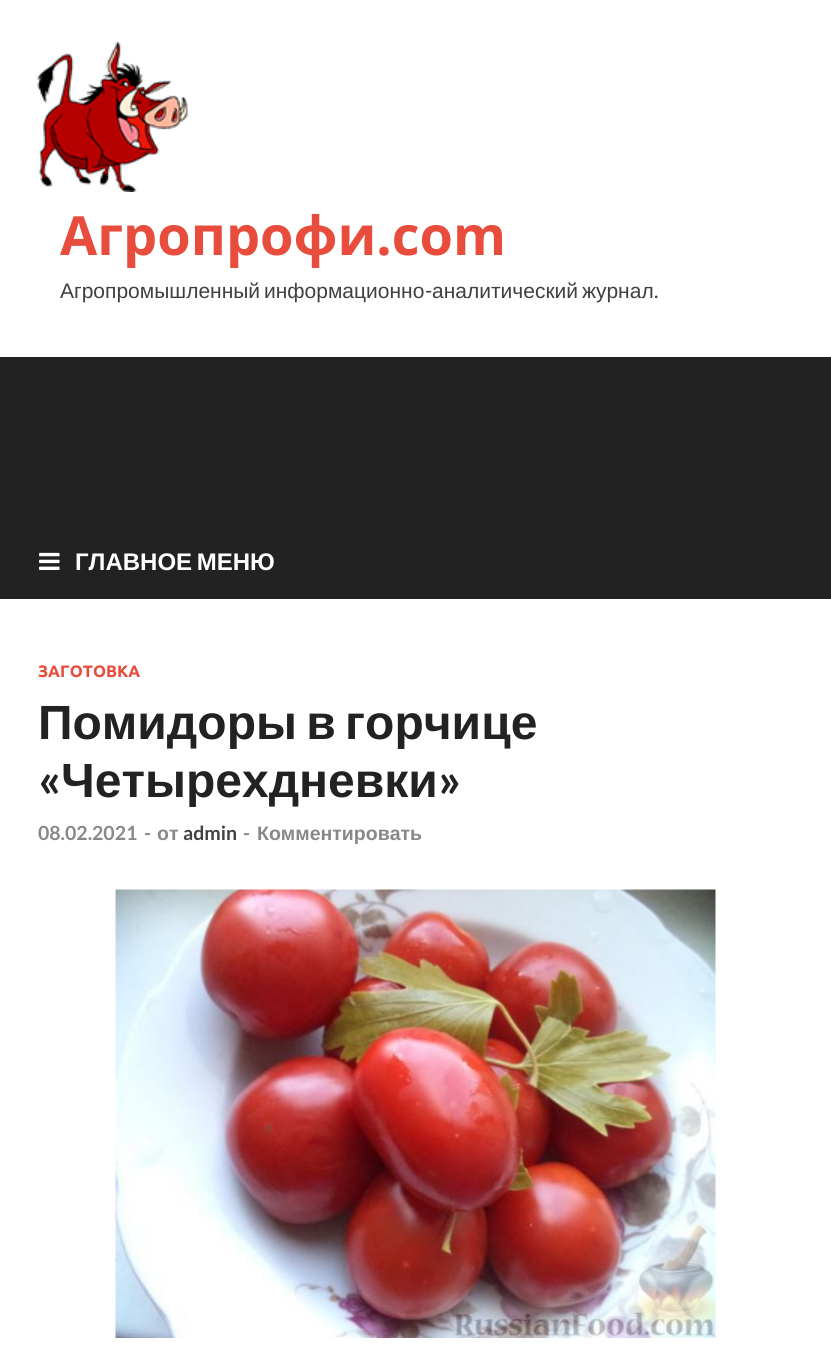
import math
import cairocffi as cairo

surface = cairo.ImageSurface(cairo.FORMAT_RGB24, 831, 1354)
ctx = cairo.Context(surface)
options = cairo.FontOptions()
options.set_hint_metrics(cairo.HINT_METRICS_OFF)
options.set_hint_style(cairo.HINT_STYLE_NONE)
ctx.set_font_options(options)
ctx.set_miter_limit(4)


def rgb(r, g, b):
    ctx.set_source_rgb(r / 255, g / 255, b / 255)


def face(family, size, italic, bold):
    ctx.select_font_face(family, cairo.FONT_SLANT_ITALIC if italic else cairo.FONT_SLANT_NORMAL, cairo.FONT_WEIGHT_BOLD if bold else cairo.FONT_WEIGHT_NORMAL)
    ctx.set_font_size(size)


def label(x, y, s):
    ctx.move_to(x, y)
    ctx.show_text(s)


def tracked(x, y, s, letter, word):
    ctx.move_to(x, y)
    for ch in s:
        ctx.show_text(ch)
        ctx.rel_move_to(letter + word * (ch == ' '), 0)


def rect(x, y, w, h):
    ctx.rectangle(x, y, w, h)
    ctx.fill()


def image(path, x, y, w, h):
    ctx.save()
    ctx.set_source_surface(cairo.ImageSurface.create_from_png(path), x, y)
    ctx.rectangle(x, y, w, h)
    ctx.fill()
    ctx.restore()


rgb(255, 255, 255)
ctx.paint()
image('image0.png', 37, 42, 151, 150)
face('Open Sans', 54, 0, 1)
rgb(231, 76, 60)
label(60, 255, 'Агропрофи.com')
face('Liberation Sans', 21, 0, 0)
rgb(64, 64, 64)
tracked(60, 298, 'Агропромышленный информационно', 0, -2)
face('Lato', 21, 0, 0)
label(425, 298, '-')
face('Liberation Sans', 21, 0, 0)
tracked(432, 298, 'аналитический журнал', 0, -2)
face('Lato', 21, 0, 0)
label(654, 298, '.')
rgb(34, 34, 34)
rect(0, 357, 831, 242)
image('image1.png', 39, 552, 21, 18)
face('Liberation Sans', 24, 0, 1)
rgb(255, 255, 255)
tracked(75, 570, 'ГЛАВНОЕ МЕНЮ', 0, -2)
face('Ubuntu', 16.5, 0, 1)
rgb(231, 76, 60)
label(38, 677, 'ЗАГОТОВКА')
face('Liberation Sans', 48, 0, 1)
rgb(34, 34, 34)
tracked(38, 739, 'Помидоры в горчице', 0, -4)
face('Lato', 48, 0, 1)
label(38, 797, '«')
face('Liberation Sans', 48, 0, 1)
label(61, 797, 'Четырехдневки')
face('Lato', 48, 0, 1)
label(438, 797, '»')
face('Lato', 19.5, 0, 1)
rgb(136, 136, 136)
label(38, 840, '08.02.2021')
label(144, 840, '-')
face('Liberation Sans', 19.5, 0, 1)
label(157, 840, 'от')
face('Lato', 19.5, 0, 1)
rgb(64, 64, 64)
label(183, 840, 'admin')
rgb(136, 136, 136)
label(243, 840, '-')
face('Liberation Sans', 19.5, 0, 1)
label(257, 840, 'Комментировать')
image('image2.png', 115, 889, 601, 449)
surface.write_to_png('render.png')
